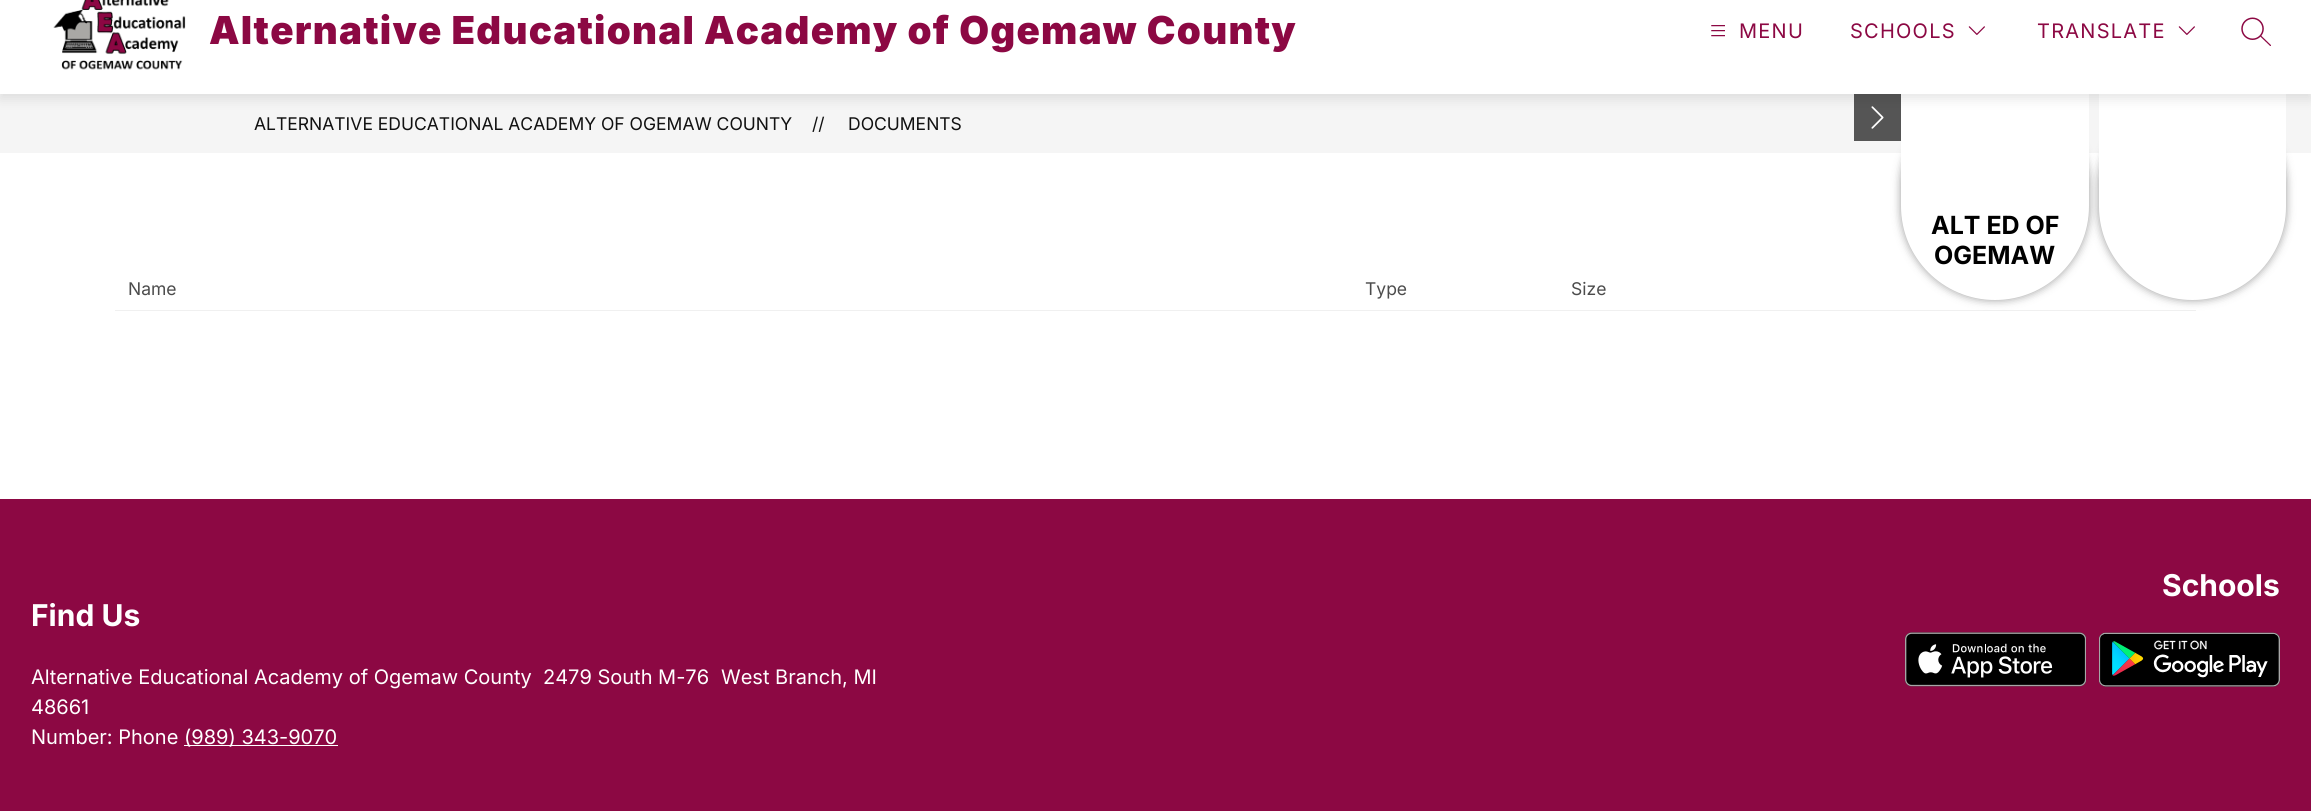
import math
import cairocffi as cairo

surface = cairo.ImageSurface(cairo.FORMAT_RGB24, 2311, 811)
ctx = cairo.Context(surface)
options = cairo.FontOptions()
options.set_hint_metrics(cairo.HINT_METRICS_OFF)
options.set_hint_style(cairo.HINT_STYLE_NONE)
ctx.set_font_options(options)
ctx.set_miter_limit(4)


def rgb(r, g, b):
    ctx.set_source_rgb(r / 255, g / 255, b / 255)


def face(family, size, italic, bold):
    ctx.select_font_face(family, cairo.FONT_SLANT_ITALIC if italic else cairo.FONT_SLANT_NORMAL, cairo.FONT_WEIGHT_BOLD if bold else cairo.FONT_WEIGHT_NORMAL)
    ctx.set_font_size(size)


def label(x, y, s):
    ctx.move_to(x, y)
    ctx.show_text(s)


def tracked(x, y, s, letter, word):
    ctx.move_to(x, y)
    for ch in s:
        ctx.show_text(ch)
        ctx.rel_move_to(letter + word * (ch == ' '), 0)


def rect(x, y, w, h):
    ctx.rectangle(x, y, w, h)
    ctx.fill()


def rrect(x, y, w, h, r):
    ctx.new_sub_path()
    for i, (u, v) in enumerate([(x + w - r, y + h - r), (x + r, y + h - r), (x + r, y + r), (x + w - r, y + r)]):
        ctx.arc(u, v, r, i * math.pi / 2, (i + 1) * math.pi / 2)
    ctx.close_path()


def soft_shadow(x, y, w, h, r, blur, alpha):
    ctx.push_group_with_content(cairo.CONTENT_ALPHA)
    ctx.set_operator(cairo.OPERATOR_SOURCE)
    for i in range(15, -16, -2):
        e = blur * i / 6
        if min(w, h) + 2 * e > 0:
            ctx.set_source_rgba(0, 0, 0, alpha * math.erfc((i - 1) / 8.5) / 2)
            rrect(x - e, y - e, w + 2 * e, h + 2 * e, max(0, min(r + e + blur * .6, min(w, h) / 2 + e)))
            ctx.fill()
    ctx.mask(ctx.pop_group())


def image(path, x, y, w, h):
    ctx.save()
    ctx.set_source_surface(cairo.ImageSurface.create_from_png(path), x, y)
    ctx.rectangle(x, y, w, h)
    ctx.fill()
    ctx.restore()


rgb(255, 255, 255)
ctx.paint()
rgb(245, 245, 245)
rect(0, 94, 2311, 59)
rgb(240, 240, 240)
rect(115, 310, 2081, 1)
rgb(0, 0, 0)
soft_shadow(1901, 94, 188, 206, 94, 4.5, 0.4)
rgb(85, 85, 85)
rect(1854, 94, 47, 47)
image('image4.png', 1871, 106, 13, 23)
rgb(255, 255, 255)
ctx.new_path()
ctx.move_to(1901, 94)
ctx.line_to(2089, 94)
ctx.line_to(2089, 206)
ctx.curve_to(2089, 258, 2047, 300, 1995, 300)
ctx.curve_to(1943, 300, 1901, 258, 1901, 206)
ctx.close_path()
ctx.fill()
rgb(0, 0, 0)
soft_shadow(2099, 94, 187, 206, 93.5, 4.5, 0.4)
rgb(255, 255, 255)
ctx.new_path()
ctx.move_to(2099, 94)
ctx.line_to(2286, 94)
ctx.line_to(2286, 206.5)
ctx.curve_to(2286, 258, 2244, 300, 2192.5, 300)
ctx.curve_to(2141, 300, 2099, 258, 2099, 206.5)
ctx.close_path()
ctx.fill()
rgb(0, 0, 0)
soft_shadow(0, -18, 2311, 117, 0, 6, 0.1)
rgb(255, 255, 255)
rect(0, 0, 2311, 94)
image('image0.png', 53, 0, 133, 70)
face('Inter Black', 38.5, 0, 0)
rgb(140, 8, 67)
tracked(209, 44, 'Alternative Educational Academy of Ogemaw County', 1.25, 0)
image('image1.png', 1711, 25, 14, 12)
face('Inter', 20, 0, 0)
tracked(1739, 38, 'MENU', 1.25, 0)
tracked(1850, 38, 'SCHOOLS', 1.25, 0)
image('image2.png', 1968, 26, 17, 9)
tracked(2037, 38, 'TRANSLATE', 1.25, 0)
image('image2.png', 2178, 26, 17, 9)
image('image3.png', 2241, 17, 30, 29)
face('Inter', 25, 0, 1)
rgb(0, 0, 0)
label(1931, 234, 'ALT ED OF')
label(1934, 264, 'OGEMAW')
face('Inter', 17.5, 0, 0)
rgb(17, 17, 17)
label(254, 130, 'ALTERNATIVE EDUCATIONAL ACADEMY OF OGEMAW COUNTY')
label(812, 130, '//')
label(848, 130, 'DOCUMENTS')
rgb(76, 76, 76)
label(128, 295, 'Name')
label(1365, 295, 'Type')
label(1571, 295, 'Size')
rgb(140, 8, 67)
rect(0, 499, 2311, 312)
face('Inter', 30, 0, 1)
rgb(255, 255, 255)
label(2162, 596, 'Schools')
image('image5.png', 1905, 632, 181, 55)
image('image6.png', 2099, 632, 181, 55)
label(31, 626, 'Find Us')
face('Inter', 20, 0, 0)
label(31, 684, 'Alternative Educational Academy of Ogemaw County')
label(543, 684, '2479 South M-76')
label(721, 684, 'West Branch, MI')
label(31, 714, '48661')
label(31, 744, 'Number: Phone')
rect(184, 745, 154, 1)
label(184, 744, '(989) 343-9070')
surface.write_to_png('render.png')
